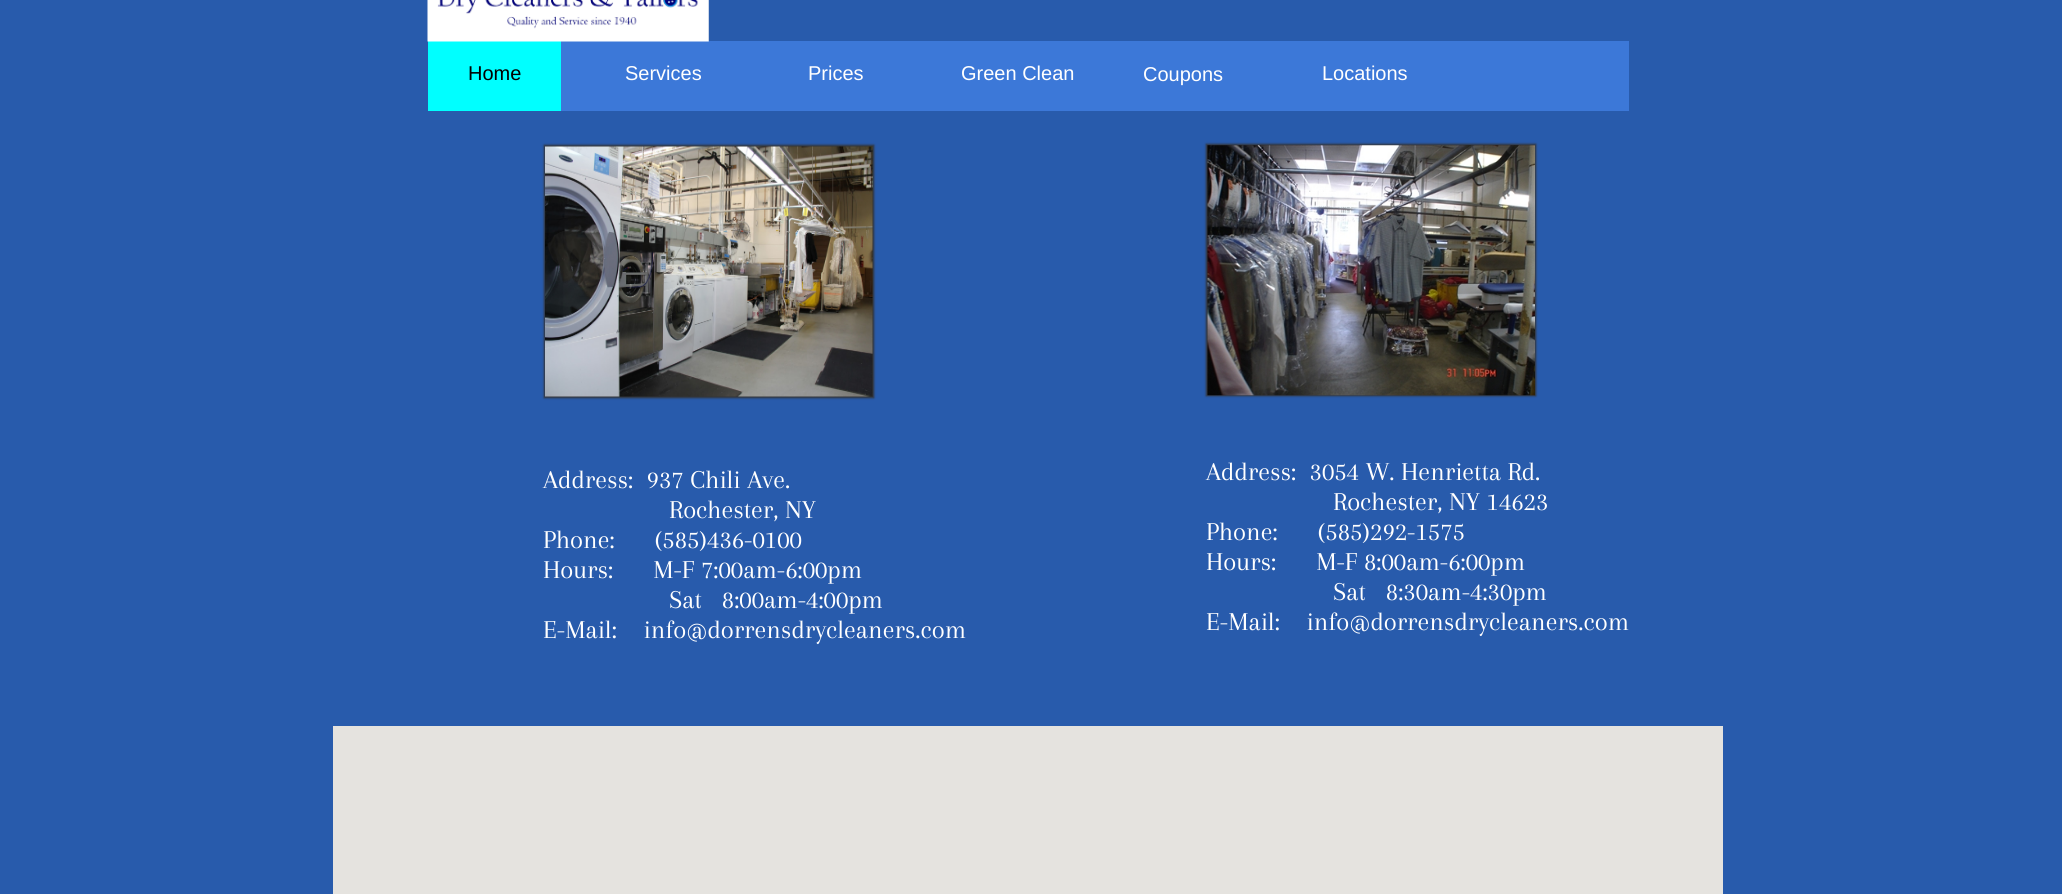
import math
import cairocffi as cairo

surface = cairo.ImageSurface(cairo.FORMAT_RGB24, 2062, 894)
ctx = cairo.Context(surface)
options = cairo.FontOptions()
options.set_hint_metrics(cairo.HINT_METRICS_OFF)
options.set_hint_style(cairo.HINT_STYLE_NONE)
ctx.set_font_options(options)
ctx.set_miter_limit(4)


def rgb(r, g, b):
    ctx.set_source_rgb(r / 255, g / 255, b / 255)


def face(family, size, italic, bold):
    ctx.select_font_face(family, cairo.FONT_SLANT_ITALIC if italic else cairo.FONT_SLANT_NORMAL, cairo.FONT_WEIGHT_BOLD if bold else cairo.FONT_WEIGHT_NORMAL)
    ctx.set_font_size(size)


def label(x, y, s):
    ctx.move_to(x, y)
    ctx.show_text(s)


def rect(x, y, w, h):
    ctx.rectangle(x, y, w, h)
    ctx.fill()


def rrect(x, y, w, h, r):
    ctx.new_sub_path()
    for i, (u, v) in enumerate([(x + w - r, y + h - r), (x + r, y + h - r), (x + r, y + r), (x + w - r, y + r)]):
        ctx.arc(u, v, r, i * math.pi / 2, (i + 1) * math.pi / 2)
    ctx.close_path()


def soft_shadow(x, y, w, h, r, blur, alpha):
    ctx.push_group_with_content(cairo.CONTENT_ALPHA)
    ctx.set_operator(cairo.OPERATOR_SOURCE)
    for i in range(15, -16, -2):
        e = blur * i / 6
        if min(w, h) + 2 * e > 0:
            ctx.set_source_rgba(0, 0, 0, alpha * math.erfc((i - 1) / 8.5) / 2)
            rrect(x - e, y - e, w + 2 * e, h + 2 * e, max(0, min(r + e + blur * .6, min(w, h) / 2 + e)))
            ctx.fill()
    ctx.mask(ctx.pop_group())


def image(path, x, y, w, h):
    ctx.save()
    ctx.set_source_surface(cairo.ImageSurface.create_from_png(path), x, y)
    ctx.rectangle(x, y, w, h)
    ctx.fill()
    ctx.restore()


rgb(40, 91, 172)
ctx.paint()
rgb(60, 120, 216)
rect(561, 41, 1068, 70)
rgb(0, 255, 255)
rect(428, 41, 133, 70)
image('image0.png', 427, 0, 282, 42)
face('Liberation Sans', 20, 0, 0)
rgb(0, 0, 0)
label(468, 80, 'Home')
rgb(255, 255, 255)
label(625, 80, 'Services')
label(808, 80, 'Prices')
label(961, 80, 'Green Clean')
label(1143, 81, 'Coupons')
label(1322, 80, 'Locations')
rgb(51, 51, 51)
soft_shadow(544, 145, 330, 253, 0, 1, 1)
image('image1.png', 545, 146, 328, 251)
soft_shadow(1206, 144, 330, 252, 0, 1, 1)
image('image2.png', 1207, 145, 328, 251)
face('Arapey', 26.7, 0, 0)
rgb(255, 255, 255)
label(543, 488, 'Address:  937 Chili Ave.')
label(669, 518, 'Rochester, NY')
label(543, 548, 'Phone:      (585)436-0100')
label(543, 578, 'Hours:      M-F 7:00am-6:00pm')
label(669, 608, 'Sat   8:00am-4:00pm')
label(543, 638, 'E-Mail:    info@dorrensdrycleaners.com')
label(1206, 480, 'Address:  3054 W. Henrietta Rd.')
label(1333, 510, 'Rochester, NY 14623')
label(1206, 540, 'Phone:      (585)292-1575')
label(1206, 570, 'Hours:      M-F 8:00am-6:00pm')
label(1333, 600, 'Sat   8:30am-4:30pm')
label(1206, 630, 'E-Mail:    info@dorrensdrycleaners.com')
rgb(229, 227, 223)
rect(333, 726, 1390, 168)
surface.write_to_png('render.png')
